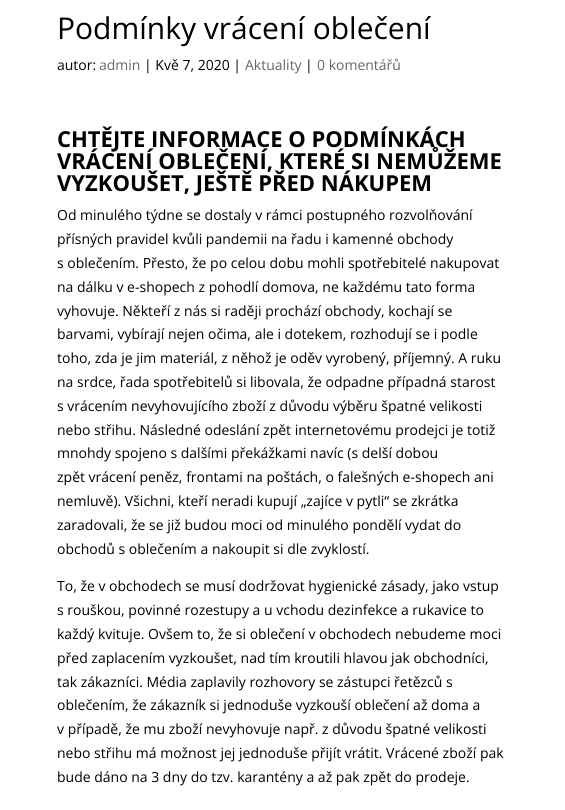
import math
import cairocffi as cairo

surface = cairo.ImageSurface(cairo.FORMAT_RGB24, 565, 810)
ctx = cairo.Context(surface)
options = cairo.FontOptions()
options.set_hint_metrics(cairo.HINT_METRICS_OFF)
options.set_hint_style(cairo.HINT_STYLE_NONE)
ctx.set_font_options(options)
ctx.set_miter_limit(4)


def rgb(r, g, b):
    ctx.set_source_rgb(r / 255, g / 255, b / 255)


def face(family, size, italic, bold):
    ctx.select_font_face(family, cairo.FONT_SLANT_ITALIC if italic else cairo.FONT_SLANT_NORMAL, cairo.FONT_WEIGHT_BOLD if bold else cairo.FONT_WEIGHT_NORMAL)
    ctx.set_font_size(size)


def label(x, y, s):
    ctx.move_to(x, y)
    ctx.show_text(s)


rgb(255, 255, 255)
ctx.paint()
face('Open Sans', 30, 0, 0)
rgb(0, 0, 0)
label(57, 39, 'Podmínky vrácení oblečení')
face('Open Sans', 14, 0, 0)
label(57, 70, 'autor:')
rgb(102, 102, 102)
label(99, 70, 'admin')
rgb(0, 0, 0)
label(144, 70, '| Kvě 7, 2020 |')
rgb(102, 102, 102)
label(245, 70, 'Aktuality')
rgb(0, 0, 0)
label(305, 70, '|')
rgb(102, 102, 102)
label(317, 70, '0 komentářů')
face('Open Sans', 22, 0, 1)
rgb(0, 0, 0)
label(57, 147, 'CHTĚJTE INFORMACE O PODMÍNKÁCH')
label(57, 169, 'VRÁCENÍ OBLEČENÍ, KTERÉ SI NEMŮŽEME')
label(57, 191, 'VYZKOUŠET, JEŠTĚ PŘED NÁKUPEM')
face('Open Sans', 14, 0, 0)
label(57, 220, 'Od minulého týdne se dostaly v rámci postupného rozvolňování')
label(57, 244, 'přísných pravidel kvůli pandemii na řadu i kamenné obchody')
label(57, 268, 's oblečením. Přesto, že po celou dobu mohli spotřebitelé nakupovat')
label(57, 292, 'na dálku v e-shopech z pohodlí domova, ne každému tato forma')
label(57, 316, 'vyhovuje. Někteří z nás si raději prochází obchody, kochají se')
label(57, 339, 'barvami, vybírají nejen očima, ale i dotekem, rozhodují se i podle')
label(57, 363, 'toho, zda je jim materiál, z něhož je oděv vyrobený, příjemný. A ruku')
label(57, 387, 'na srdce, řada spotřebitelů si libovala, že odpadne případná starost')
label(57, 411, 's vrácením nevyhovujícího zboží z důvodu výběru špatné velikosti')
label(57, 435, 'nebo střihu. Následné odeslání zpět internetovému prodejci je totiž')
label(57, 458, 'mnohdy spojeno s dalšími překážkami navíc (s delší dobou')
label(57, 482, 'zpět vrácení peněz, frontami na poštách, o falešných e-shopech ani')
label(57, 506, 'nemluvě). Všichni, kteří neradi kupují „zajíce v pytli“ se zkrátka')
label(57, 530, 'zaradovali, že se již budou moci od minulého pondělí vydat do')
label(57, 554, 'obchodů s oblečením a nakoupit si dle zvyklostí.')
label(57, 591, 'To, že v obchodech se musí dodržovat hygienické zásady, jako vstup')
label(57, 615, 's rouškou, povinné rozestupy a u vchodu dezinfekce a rukavice to')
label(57, 639, 'každý kvituje. Ovšem to, že si oblečení v obchodech nebudeme moci')
label(57, 663, 'před zaplacením vyzkoušet, nad tím kroutili hlavou jak obchodníci,')
label(57, 687, 'tak zákazníci. Média zaplavily rozhovory se zástupci řetězců s')
label(57, 710, 'oblečením, že zákazník si jednoduše vyzkouší oblečení až doma a')
label(57, 734, 'v případě, že mu zboží nevyhovuje např. z důvodu špatné velikosti')
label(57, 758, 'nebo střihu má možnost jej jednoduše přijít vrátit. Vrácené zboží pak')
label(57, 782, 'bude dáno na 3 dny do tzv. karantény a až pak zpět do prodeje.')
surface.write_to_png('render.png')
